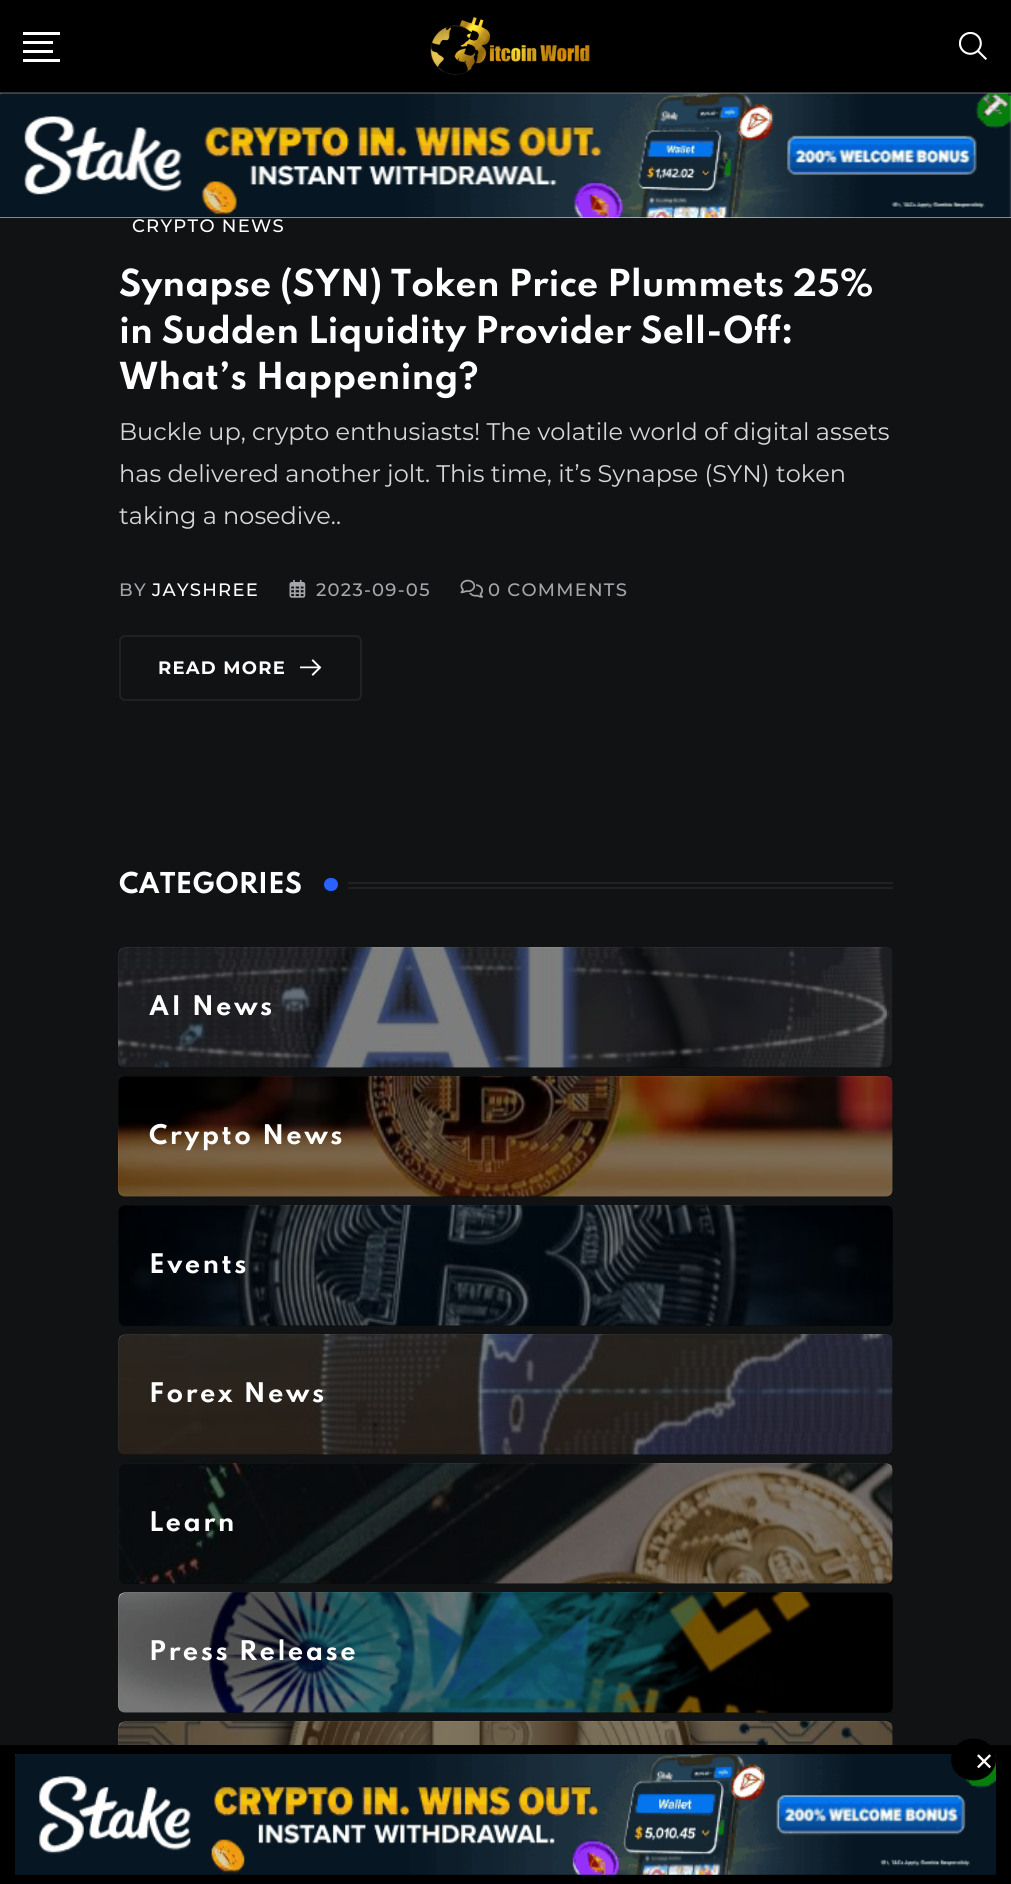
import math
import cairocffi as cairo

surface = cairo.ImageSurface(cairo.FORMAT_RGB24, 1011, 1884)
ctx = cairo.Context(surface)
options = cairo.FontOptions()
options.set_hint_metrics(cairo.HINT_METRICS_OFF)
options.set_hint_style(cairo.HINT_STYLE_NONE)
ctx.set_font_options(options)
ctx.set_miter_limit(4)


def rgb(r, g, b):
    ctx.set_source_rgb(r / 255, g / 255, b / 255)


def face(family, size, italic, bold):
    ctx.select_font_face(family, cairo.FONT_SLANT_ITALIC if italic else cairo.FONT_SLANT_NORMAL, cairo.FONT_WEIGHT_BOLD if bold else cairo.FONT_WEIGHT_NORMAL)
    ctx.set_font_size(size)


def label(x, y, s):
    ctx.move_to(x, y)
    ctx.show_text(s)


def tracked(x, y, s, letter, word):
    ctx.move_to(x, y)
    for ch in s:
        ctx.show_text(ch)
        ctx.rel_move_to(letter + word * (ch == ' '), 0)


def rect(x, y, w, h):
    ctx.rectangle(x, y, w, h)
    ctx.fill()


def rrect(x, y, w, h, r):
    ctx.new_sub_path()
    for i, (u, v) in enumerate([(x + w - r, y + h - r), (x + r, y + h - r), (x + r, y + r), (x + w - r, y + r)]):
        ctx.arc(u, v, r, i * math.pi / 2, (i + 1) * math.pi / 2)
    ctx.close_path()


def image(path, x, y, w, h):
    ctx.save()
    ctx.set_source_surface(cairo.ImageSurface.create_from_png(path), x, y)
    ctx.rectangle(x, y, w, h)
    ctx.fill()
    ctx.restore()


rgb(16, 18, 19)
ctx.paint()
rgb(255, 255, 255)
rect(0, 93, 1011, 125)
rgb(0, 0, 0)
rect(0, 0, 1011, 93)
image('image2.png', 0, 93, 1011, 125)
ctx.set_source_rgba(0.71, 0.71, 0.71, 0.3)
rect(0, 92, 1011, 2)
rgb(255, 255, 255)
rect(23, 32, 37, 3)
rect(23, 41, 30, 3)
rect(23, 50, 30, 3)
rect(23, 59, 37, 3)
image('image0.png', 430, 16, 160, 59)
image('image1.png', 959, 32, 28, 28)
face('Montserrat Medium', 18, 0, 0)
tracked(132, 232, 'CRYPTO NEWS', 1.25, 0)
face('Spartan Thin', 33, 0, 1)
label(119, 296, 'Synapse (SYN) Token Price Plummets 25%')
label(119, 343, 'in Sudden Liquidity Provider Sell-Off:')
label(119, 389, 'What’s Happening?')
face('Montserrat', 24, 0, 0)
rgb(215, 215, 215)
label(119, 440, 'Buckle up, crypto enthusiasts! The volatile world of digital assets')
label(119, 482, 'has delivered another jolt. This time, it’s Synapse (SYN) token')
label(119, 524, 'taking a nosedive..')
face('Montserrat Medium', 18, 0, 0)
rgb(165, 166, 170)
tracked(119, 596, 'BY', 1.25, 0)
rgb(255, 255, 255)
tracked(152, 596, 'JAYSHREE', 1.25, 0)
image('image3.png', 289, 579, 17, 19)
rgb(165, 166, 170)
tracked(316, 596, '2023-09-05', 1.25, 0)
image('image4.png', 460, 579, 23, 19)
tracked(488, 596, '0 COMMENTS', 1.25, 0)
rrect(120, 636, 241, 64, 5)
rgb(34, 33, 33)
ctx.stroke()
face('Montserrat', 18, 0, 1)
rgb(255, 255, 255)
tracked(158, 674, 'READ MORE', 1.25, 0)
image('image5.png', 300, 659, 22, 17)
face('Spartan Thin', 25.5, 0, 1)
label(119, 893, 'CATEGORIES')
rgb(41, 98, 255)
rrect(324, 878, 14, 13, 6.5)
ctx.fill()
rgb(34, 33, 33)
rect(348, 882, 545, 2)
rect(348, 887, 545, 2)
image('image6.png', 118, 947, 775, 121)
ctx.set_source_rgba(0, 0, 0, 0.5)
rrect(119, 948, 774, 120, 6)
ctx.fill()
face('Spartan Thin', 24, 0, 1)
rgb(255, 255, 255)
tracked(149, 1015, 'AI News', 2.4, 0)
image('image7.png', 118, 1076, 775, 121)
ctx.set_source_rgba(0, 0, 0, 0.5)
rrect(119, 1077, 774, 120, 6)
ctx.fill()
rgb(255, 255, 255)
tracked(149, 1144, 'Crypto News', 2.4, 0)
image('image8.png', 118, 1205, 775, 121)
ctx.set_source_rgba(0, 0, 0, 0.5)
rrect(119, 1206, 774, 120, 6)
ctx.fill()
rgb(255, 255, 255)
tracked(149, 1273, 'Events', 2.4, 0)
image('image9.png', 118, 1334, 775, 121)
ctx.set_source_rgba(0, 0, 0, 0.5)
rrect(119, 1335, 774, 120, 6)
ctx.fill()
rgb(255, 255, 255)
tracked(149, 1402, 'Forex News', 2.4, 0)
image('image10.png', 118, 1463, 775, 121)
ctx.set_source_rgba(0, 0, 0, 0.5)
rrect(119, 1464, 774, 120, 6)
ctx.fill()
rgb(255, 255, 255)
tracked(149, 1531, 'Learn', 2.4, 0)
image('image11.png', 118, 1592, 775, 121)
ctx.set_source_rgba(0, 0, 0, 0.5)
rrect(119, 1593, 774, 120, 6)
ctx.fill()
rgb(255, 255, 255)
tracked(149, 1660, 'Press Release', 2.4, 0)
image('image12.png', 118, 1721, 775, 24)
ctx.set_source_rgba(0, 0, 0, 0.5)
rrect(119, 1722, 774, 120, 6)
ctx.fill()
rgb(0, 0, 0)
rect(0, 1745, 1011, 139)
image('image13.png', 15, 1754, 981, 121)
ctx.new_path()
ctx.move_to(973.5, 1738.5)
ctx.curve_to(986, 1738.5, 996, 1748, 996, 1759.5)
ctx.curve_to(996, 1771, 986, 1780.5, 973.5, 1780.5)
ctx.curve_to(961, 1780.5, 951, 1771, 951, 1759.5)
ctx.curve_to(951, 1748, 961, 1738.5, 973.5, 1738.5)
ctx.close_path()
ctx.fill()
face('DejaVu Sans', 24, 0, 0)
rgb(255, 255, 255)
label(974, 1770, '✕')
surface.write_to_png('render.png')
